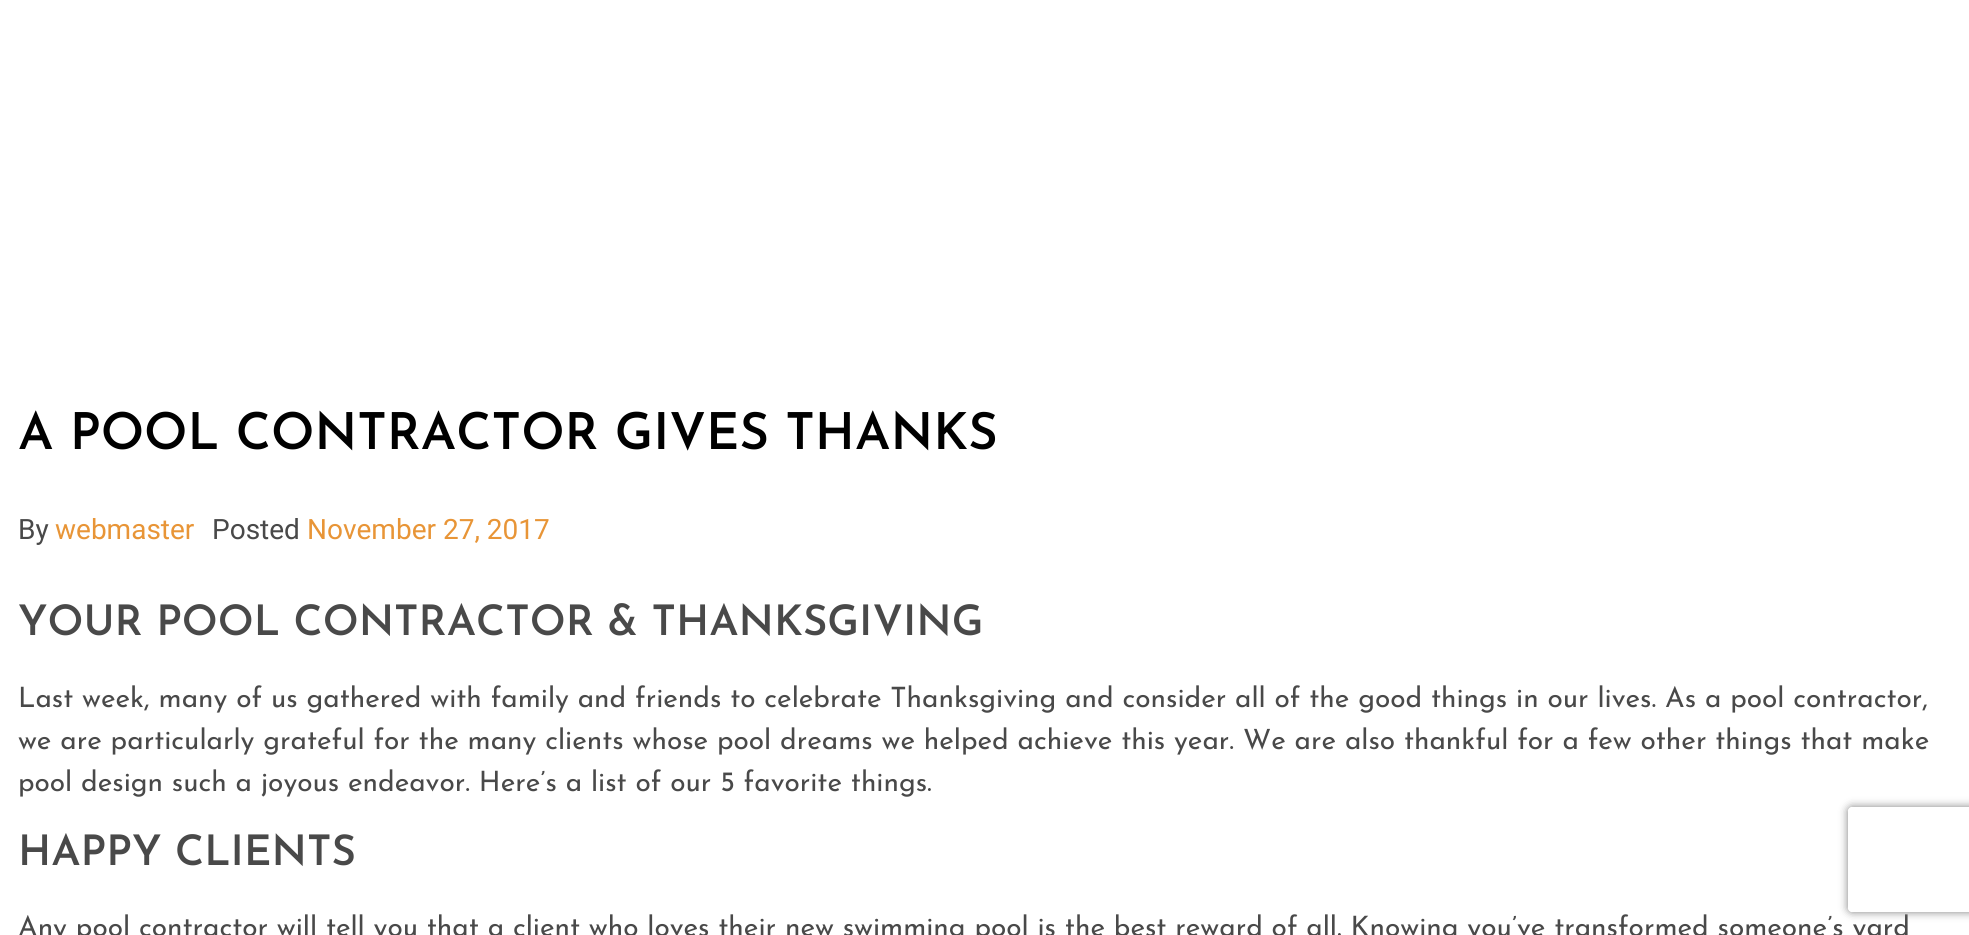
import math
import cairocffi as cairo

surface = cairo.ImageSurface(cairo.FORMAT_RGB24, 1969, 935)
ctx = cairo.Context(surface)
options = cairo.FontOptions()
options.set_hint_metrics(cairo.HINT_METRICS_OFF)
options.set_hint_style(cairo.HINT_STYLE_NONE)
ctx.set_font_options(options)
ctx.set_miter_limit(4)


def rgb(r, g, b):
    ctx.set_source_rgb(r / 255, g / 255, b / 255)


def face(family, size, italic, bold):
    ctx.select_font_face(family, cairo.FONT_SLANT_ITALIC if italic else cairo.FONT_SLANT_NORMAL, cairo.FONT_WEIGHT_BOLD if bold else cairo.FONT_WEIGHT_NORMAL)
    ctx.set_font_size(size)


def label(x, y, s):
    ctx.move_to(x, y)
    ctx.show_text(s)


def rrect(x, y, w, h, r):
    ctx.new_sub_path()
    for i, (u, v) in enumerate([(x + w - r, y + h - r), (x + r, y + h - r), (x + r, y + r), (x + w - r, y + r)]):
        ctx.arc(u, v, r, i * math.pi / 2, (i + 1) * math.pi / 2)
    ctx.close_path()


def soft_shadow(x, y, w, h, r, blur, alpha):
    ctx.push_group_with_content(cairo.CONTENT_ALPHA)
    ctx.set_operator(cairo.OPERATOR_SOURCE)
    for i in range(15, -16, -2):
        e = blur * i / 6
        if min(w, h) + 2 * e > 0:
            ctx.set_source_rgba(0, 0, 0, alpha * math.erfc((i - 1) / 8.5) / 2)
            rrect(x - e, y - e, w + 2 * e, h + 2 * e, max(0, min(r + e + blur * .6, min(w, h) / 2 + e)))
            ctx.fill()
    ctx.mask(ctx.pop_group())


rgb(255, 255, 255)
ctx.paint()
face('Josefin Sans SemiBold', 50.75, 0, 0)
rgb(0, 0, 0)
label(18, 449, 'A POOL CONTRACTOR GIVES THANKS')
face('Roboto', 28, 0, 0)
rgb(73, 73, 73)
label(18, 539, 'By')
rgb(232, 149, 55)
label(55, 539, 'webmaster')
rgb(73, 73, 73)
label(212, 539, 'Posted')
rgb(232, 149, 55)
label(307, 539, 'November 27, 2017')
face('Josefin Sans SemiBold', 42, 0, 0)
rgb(73, 73, 73)
label(18, 635, 'YOUR POOL CONTRACTOR & THANKSGIVING')
face('Josefin Sans', 28, 0, 0)
label(18, 707, 'Last week, many of us gathered with family and friends to celebrate Thanksgiving and consider all of the good things in our lives. As a pool contractor,')
label(18, 749, 'we are particularly grateful for the many clients whose pool dreams we helped achieve this year. We are also thankful for a few other things that make')
label(18, 791, 'pool design such a joyous endeavor. Here’s a list of our 5 favorite things.')
face('Josefin Sans SemiBold', 42, 0, 0)
label(18, 865, 'HAPPY CLIENTS')
face('Josefin Sans', 28, 0, 0)
label(18, 936, 'Any pool contractor will tell you that a client who loves their new swimming pool is the best reward of all. Knowing you’ve transformed someone’s yard')
ctx.save()
ctx.set_fill_rule(cairo.FILL_RULE_EVEN_ODD)
ctx.new_path()
ctx.move_to(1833, 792)
ctx.line_to(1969, 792)
ctx.line_to(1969, 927)
ctx.line_to(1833, 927)
ctx.close_path()
ctx.move_to(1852, 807)
ctx.line_to(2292, 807)
ctx.curve_to(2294, 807, 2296, 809, 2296, 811)
ctx.line_to(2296, 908)
ctx.curve_to(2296, 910, 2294, 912, 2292, 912)
ctx.line_to(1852, 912)
ctx.curve_to(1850, 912, 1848, 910, 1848, 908)
ctx.line_to(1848, 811)
ctx.curve_to(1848, 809, 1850, 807, 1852, 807)
ctx.close_path()
ctx.clip()
rgb(128, 128, 128)
soft_shadow(1848, 807, 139, 105, 4, 4.5, 1)
ctx.restore()
surface.write_to_png('render.png')
